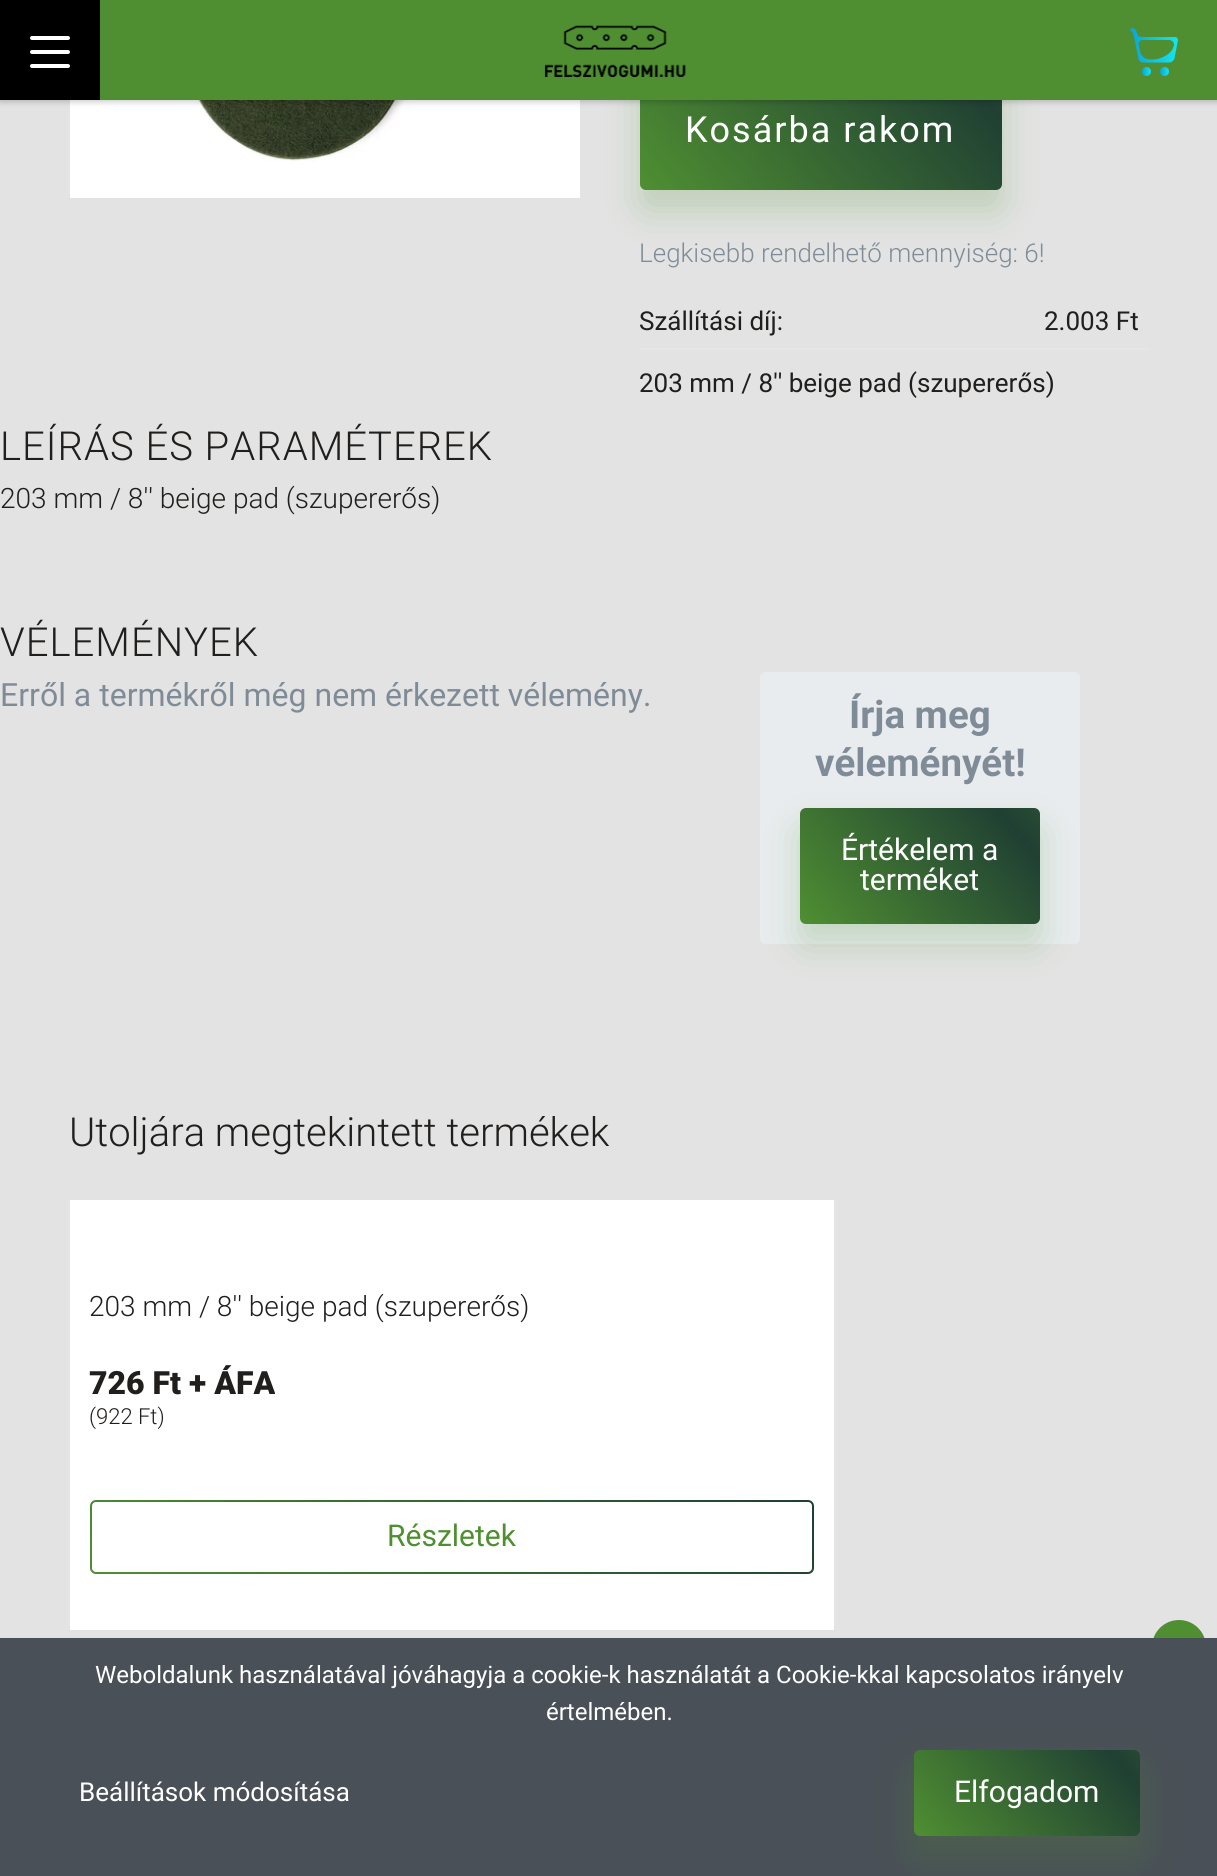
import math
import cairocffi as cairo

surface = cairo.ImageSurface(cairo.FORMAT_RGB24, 1217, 1876)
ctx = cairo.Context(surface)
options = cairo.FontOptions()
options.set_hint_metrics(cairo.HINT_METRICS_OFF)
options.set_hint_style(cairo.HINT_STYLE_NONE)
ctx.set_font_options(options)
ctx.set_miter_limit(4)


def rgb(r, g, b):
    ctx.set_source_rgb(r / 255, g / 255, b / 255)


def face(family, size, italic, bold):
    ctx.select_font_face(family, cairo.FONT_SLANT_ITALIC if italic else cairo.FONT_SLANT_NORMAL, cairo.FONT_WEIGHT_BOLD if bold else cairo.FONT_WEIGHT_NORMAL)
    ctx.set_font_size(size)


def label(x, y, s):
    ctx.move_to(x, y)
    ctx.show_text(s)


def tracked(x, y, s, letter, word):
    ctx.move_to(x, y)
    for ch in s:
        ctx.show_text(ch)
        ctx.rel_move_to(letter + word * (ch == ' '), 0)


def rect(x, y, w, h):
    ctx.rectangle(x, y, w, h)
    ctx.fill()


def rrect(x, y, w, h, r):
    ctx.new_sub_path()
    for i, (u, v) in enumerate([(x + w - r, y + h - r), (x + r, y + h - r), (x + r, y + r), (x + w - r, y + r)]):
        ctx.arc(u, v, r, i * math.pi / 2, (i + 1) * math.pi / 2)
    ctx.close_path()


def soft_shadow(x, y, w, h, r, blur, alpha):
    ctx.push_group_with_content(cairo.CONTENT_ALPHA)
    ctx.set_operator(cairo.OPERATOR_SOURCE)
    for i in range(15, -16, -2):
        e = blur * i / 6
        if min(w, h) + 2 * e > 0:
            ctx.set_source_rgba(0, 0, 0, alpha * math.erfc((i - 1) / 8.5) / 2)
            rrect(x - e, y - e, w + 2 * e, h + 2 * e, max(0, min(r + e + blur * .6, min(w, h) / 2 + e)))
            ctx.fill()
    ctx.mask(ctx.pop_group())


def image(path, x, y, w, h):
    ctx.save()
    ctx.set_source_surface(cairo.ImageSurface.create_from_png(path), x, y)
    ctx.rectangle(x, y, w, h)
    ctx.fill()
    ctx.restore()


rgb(227, 227, 227)
ctx.paint()
image('image2.png', 70, 100, 510, 98)
rgb(79, 143, 50)
soft_shadow(640, 90, 362, 120, 6, 20, 0.25)
gradient = cairo.LinearGradient(760, 333, 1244, -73)
gradient.add_color_stop_rgba(0, 0.31, 0.561, 0.196, 1)
gradient.add_color_stop_rgba(0.51, 0.125, 0.251, 0.2, 1)
gradient.add_color_stop_rgba(1, 0.31, 0.561, 0.196, 1)
ctx.set_source(gradient)
rrect(640, 70, 362, 120, 6)
ctx.fill()
rgb(0, 0, 0)
soft_shadow(0, 2, 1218, 100, 0, 3, 0.2)
rgb(79, 143, 50)
rect(100, 0, 1117, 100)
rgb(0, 0, 0)
rect(0, 0, 100, 100)
rgb(255, 255, 255)
rrect(30, 36, 40, 4, 2)
ctx.fill()
rrect(30, 50, 40, 4, 2)
ctx.fill()
rrect(30, 64, 40, 4, 2)
ctx.fill()
image('image0.png', 544, 25, 142, 53)
image('image1.png', 1130, 28, 48, 48)
face('Roboto', 36, 0, 0)
tracked(685, 142, 'Kosárba rakom', 2, 0)
face('Roboto Light', 26, 0, 0)
rgb(127, 140, 151)
label(639, 262, 'Legkisebb rendelhető mennyiség: 6!')
rgb(232, 230, 228)
rect(638, 348, 512, 2)
face('Roboto', 26, 0, 0)
rgb(33, 31, 29)
label(639, 330, 'Szállítási díj:')
label(1044, 330, '2.003 Ft')
label(639, 392, '203 mm / 8\'\' beige pad (szupererős)')
face('Roboto Light', 40, 0, 0)
tracked(0, 460, 'LEÍRÁS ÉS PARAMÉTEREK', 1, 0)
face('Roboto Light', 28, 0, 0)
label(0, 508, '203 mm / 8\'\' beige pad (szupererős)')
face('Roboto Light', 40, 0, 0)
tracked(0, 656, 'VÉLEMÉNYEK', 1, 0)
face('Roboto', 32, 0, 0)
rgb(127, 140, 151)
label(0, 706, 'Erről a termékről még nem érkezett vélemény.')
rgb(233, 236, 239)
rrect(760, 672, 320, 272, 6)
ctx.fill()
face('Roboto', 38.5, 0, 1)
rgb(127, 140, 151)
label(849, 728, 'Írja meg')
label(815, 776, 'véleményét!')
rgb(79, 143, 50)
soft_shadow(800, 828, 240, 116, 6, 20, 0.25)
gradient = cairo.LinearGradient(871, 1008, 1209, 724)
gradient.add_color_stop_rgba(0, 0.31, 0.561, 0.196, 1)
gradient.add_color_stop_rgba(0.51, 0.125, 0.251, 0.2, 1)
gradient.add_color_stop_rgba(1, 0.31, 0.561, 0.196, 1)
ctx.set_source(gradient)
rrect(800, 808, 240, 116, 6)
ctx.fill()
face('Roboto', 30, 0, 0)
rgb(255, 255, 255)
label(841, 860, 'Értékelem a')
label(860, 890, 'terméket')
face('Roboto Light', 40, 0, 0)
rgb(33, 31, 29)
label(69, 1146, 'Utoljára megtekintett termékek')
rgb(255, 255, 255)
rect(70, 1200, 764, 430)
face('Roboto Light', 28, 0, 0)
rgb(33, 31, 29)
label(89, 1316, '203 mm / 8\'\' beige pad (szupererős)')
face('Roboto Black', 32, 0, 0)
label(89, 1394, '726 Ft + ÁFA')
face('Roboto Light', 22, 0, 0)
label(89, 1424, '(922 Ft)')
gradient = cairo.LinearGradient(371, 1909, 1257, 1165)
gradient.add_color_stop_rgba(0, 0.31, 0.561, 0.196, 1)
gradient.add_color_stop_rgba(0.51, 0.125, 0.251, 0.2, 1)
gradient.add_color_stop_rgba(1, 0.31, 0.561, 0.196, 1)
ctx.set_source(gradient)
rrect(90, 1500, 724, 74, 6)
ctx.fill()
rgb(255, 255, 255)
rrect(92, 1502, 720, 70, 4)
ctx.fill()
face('Roboto', 30, 0, 0)
rgb(79, 143, 50)
label(387, 1546, 'Részletek')
ctx.new_path()
ctx.arc(1179, 1647, 27, 0, 2 * math.pi)
ctx.fill()
rgb(73, 80, 87)
rect(0, 1638, 1217, 238)
face('Roboto', 24, 0, 0)
rgb(255, 255, 255)
label(95, 1683, 'Weboldalunk használatával jóváhagyja a cookie-k használatát a Cookie-kkal kapcsolatos irányelv')
label(546, 1720, 'értelmében.')
face('Roboto', 26, 0, 0)
label(79, 1801, 'Beállítások módosítása')
rgb(79, 143, 50)
soft_shadow(914, 1770, 226, 86, 6, 20, 0.25)
gradient = cairo.LinearGradient(986, 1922, 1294, 1664)
gradient.add_color_stop_rgba(0, 0.31, 0.561, 0.196, 1)
gradient.add_color_stop_rgba(0.51, 0.125, 0.251, 0.2, 1)
gradient.add_color_stop_rgba(1, 0.31, 0.561, 0.196, 1)
ctx.set_source(gradient)
rrect(914, 1750, 226, 86, 6)
ctx.fill()
face('Roboto', 30, 0, 0)
rgb(255, 255, 255)
label(954, 1802, 'Elfogadom')
surface.write_to_png('render.png')
